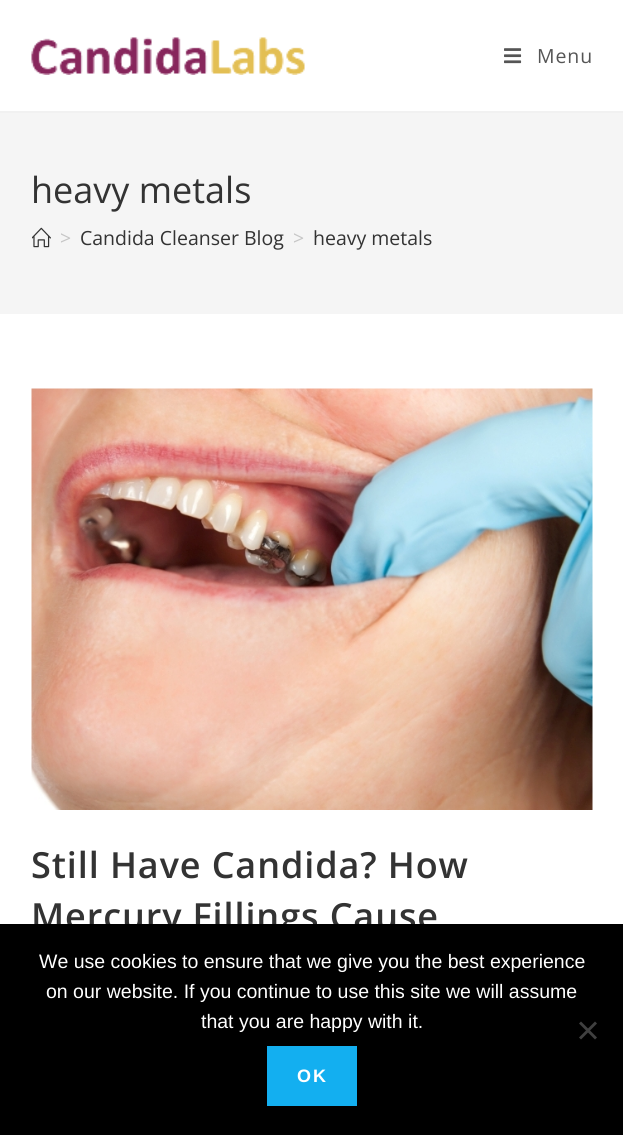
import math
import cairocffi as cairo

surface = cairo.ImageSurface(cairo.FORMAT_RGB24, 623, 1135)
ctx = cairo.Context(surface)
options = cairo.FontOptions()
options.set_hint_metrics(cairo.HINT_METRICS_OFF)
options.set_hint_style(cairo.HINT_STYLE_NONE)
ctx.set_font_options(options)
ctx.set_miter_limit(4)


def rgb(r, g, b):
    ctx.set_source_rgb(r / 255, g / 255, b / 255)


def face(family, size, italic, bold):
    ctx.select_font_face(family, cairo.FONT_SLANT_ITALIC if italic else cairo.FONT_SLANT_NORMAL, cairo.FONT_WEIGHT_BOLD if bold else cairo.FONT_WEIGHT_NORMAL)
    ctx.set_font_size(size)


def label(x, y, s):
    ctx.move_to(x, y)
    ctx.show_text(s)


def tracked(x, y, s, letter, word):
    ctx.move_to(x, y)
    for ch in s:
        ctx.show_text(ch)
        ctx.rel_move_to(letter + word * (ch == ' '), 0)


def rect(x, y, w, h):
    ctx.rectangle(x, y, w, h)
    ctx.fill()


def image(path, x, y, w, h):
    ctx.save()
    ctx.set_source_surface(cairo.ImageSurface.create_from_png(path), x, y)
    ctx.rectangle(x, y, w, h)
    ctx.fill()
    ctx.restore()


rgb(255, 255, 255)
ctx.paint()
rgb(241, 241, 241)
rect(0, 111, 623, 2)
image('image0.png', 31, 37, 274, 38)
image('image1.png', 504, 48, 18, 16)
face('Open Sans', 19.5, 0, 0)
rgb(85, 85, 85)
tracked(537, 63, 'Menu', 0.9, 0)
rgb(245, 245, 245)
rect(0, 113, 623, 201)
face('Open Sans', 36, 0, 0)
rgb(51, 51, 51)
label(31, 203, 'heavy metals')
image('image2.png', 32, 227, 19, 21)
face('Open Sans', 19.5, 0, 0)
rgb(198, 198, 198)
label(60, 245, '>')
rgb(51, 51, 51)
label(80, 245, 'Candida Cleanser Blog')
rgb(198, 198, 198)
label(293, 245, '>')
rgb(51, 51, 51)
label(313, 245, 'heavy metals')
image('image3.png', 31, 388, 562, 422)
face('Open Sans SemiBold', 36, 0, 0)
tracked(31, 878, 'Still Have Candida? How', 0.9, 0)
tracked(31, 929, 'Mercury Fillings Cause', 0.9, 0)
rgb(0, 0, 0)
rect(0, 924, 623, 211)
face('Liberation Sans', 19.5, 0, 0)
rgb(255, 255, 255)
label(39, 968, 'We use cookies to ensure that we give you the best experience')
label(46, 998, 'on our website. If you continue to use this site we will assume')
label(201, 1028, 'that you are happy with it.')
rgb(64, 64, 64)
ctx.new_path()
ctx.move_to(595, 1021.5)
ctx.line_to(597, 1023.5)
ctx.line_to(581, 1039.5)
ctx.line_to(579, 1037.5)
ctx.close_path()
ctx.fill()
ctx.new_path()
ctx.move_to(579, 1023.5)
ctx.line_to(581, 1021.5)
ctx.line_to(597, 1037.5)
ctx.line_to(595, 1039.5)
ctx.close_path()
ctx.fill()
rgb(19, 175, 240)
rect(267, 1046, 90, 60)
face('Liberation Sans', 18, 0, 1)
rgb(255, 255, 255)
tracked(297, 1082, 'OK', 2, 0)
surface.write_to_png('render.png')
